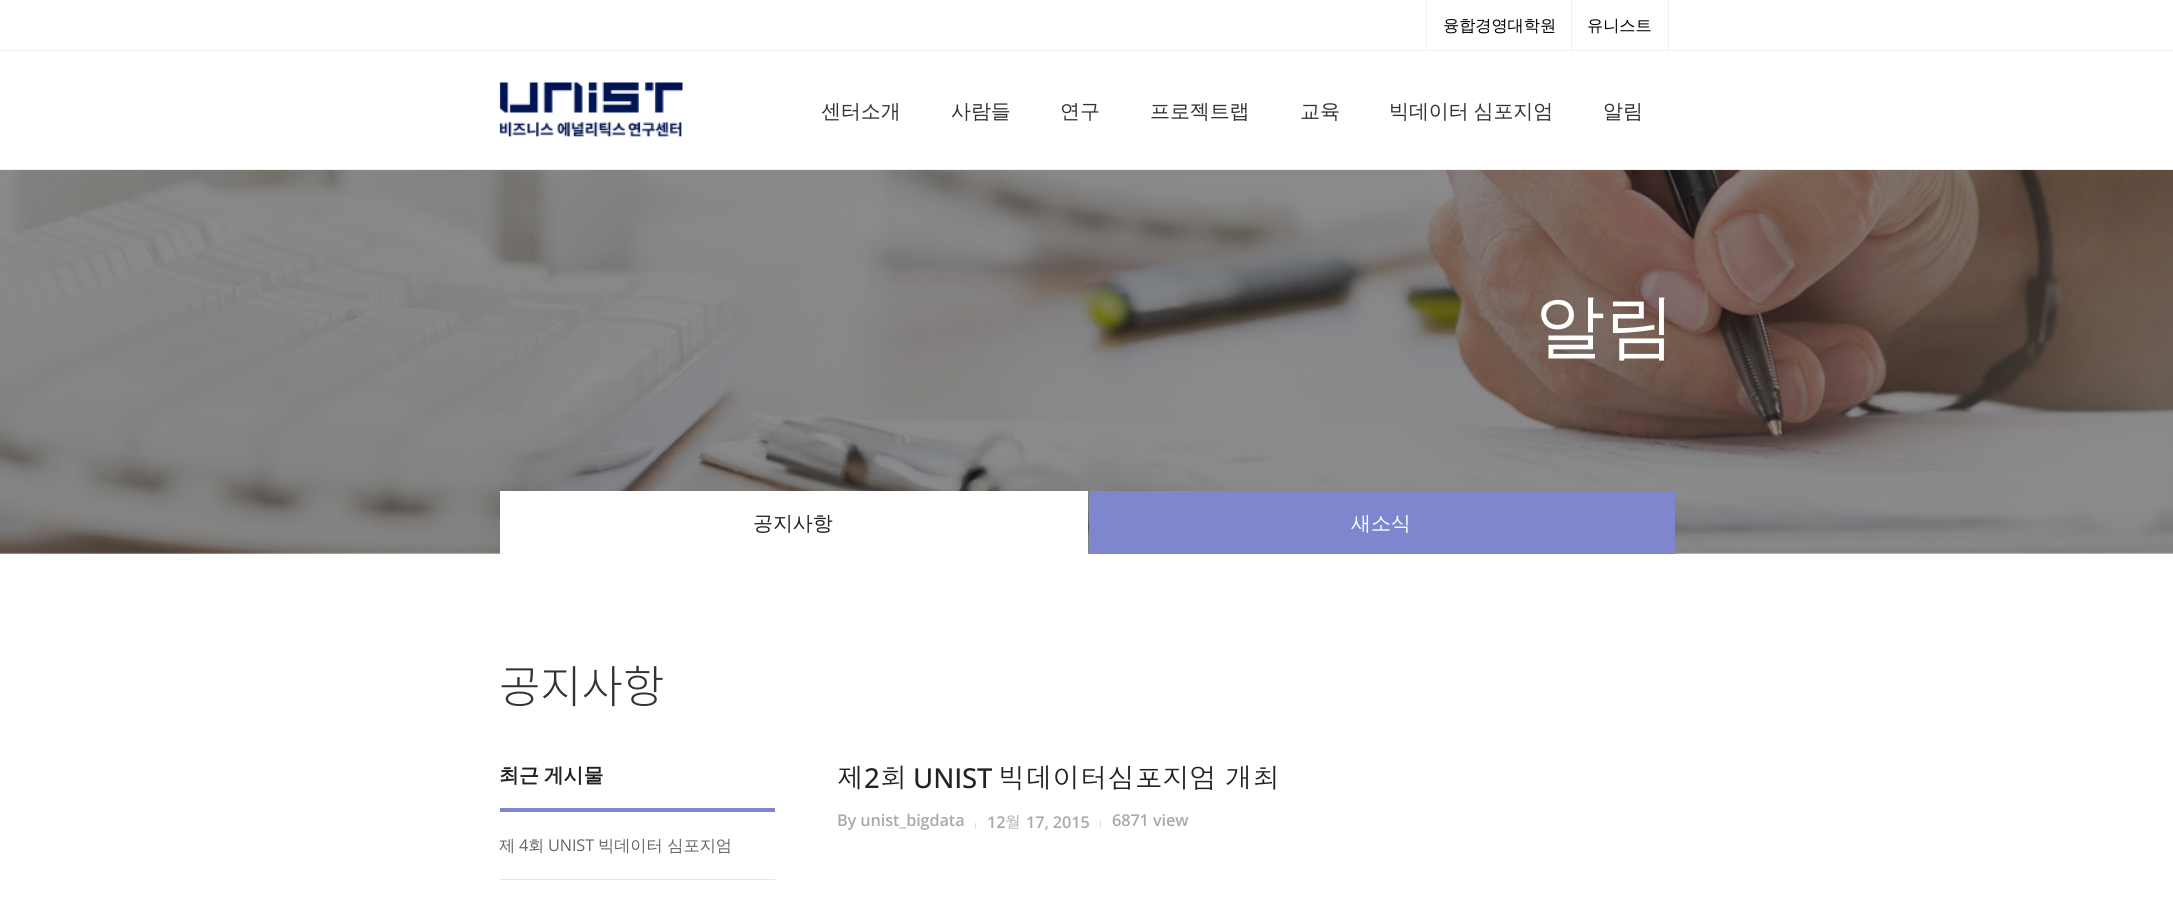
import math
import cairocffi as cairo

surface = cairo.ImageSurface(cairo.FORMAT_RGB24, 2173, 901)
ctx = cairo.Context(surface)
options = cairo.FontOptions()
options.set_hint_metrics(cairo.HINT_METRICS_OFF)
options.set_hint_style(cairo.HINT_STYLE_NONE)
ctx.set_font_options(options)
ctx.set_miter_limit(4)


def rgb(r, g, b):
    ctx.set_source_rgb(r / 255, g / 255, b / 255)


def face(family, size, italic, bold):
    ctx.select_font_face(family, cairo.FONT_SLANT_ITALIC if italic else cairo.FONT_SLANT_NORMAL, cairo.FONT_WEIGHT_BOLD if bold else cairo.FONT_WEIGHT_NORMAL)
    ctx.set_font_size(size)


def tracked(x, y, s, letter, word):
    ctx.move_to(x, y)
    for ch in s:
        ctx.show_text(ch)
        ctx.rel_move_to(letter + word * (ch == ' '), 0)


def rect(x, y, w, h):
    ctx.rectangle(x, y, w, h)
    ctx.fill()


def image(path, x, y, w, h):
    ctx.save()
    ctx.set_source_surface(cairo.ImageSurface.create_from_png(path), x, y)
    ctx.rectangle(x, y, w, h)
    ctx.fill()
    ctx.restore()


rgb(255, 255, 255)
ctx.paint()
rgb(238, 238, 238)
rect(0, 169, 2173, 1)
rect(0, 50, 2173, 1)
rgb(237, 239, 238)
rect(1668, 0, 1, 51)
rect(1426, 0, 1, 51)
face('WenQuanYi Zen Hei Medium', 16.25, 0, 0)
rgb(0, 0, 0)
tracked(1443, 31, '융합경영대학원', -0.1, 0)
rgb(237, 239, 238)
rect(1571, 0, 1, 51)
rgb(0, 0, 0)
tracked(1587, 31, '유니스트', -0.1, 0)
image('image0.png', 499, 82, 184, 55)
face('WenQuanYi Zen Hei Medium', 20, 0, 0)
rgb(51, 51, 51)
tracked(821, 118, '센터소개', -0.1, 0)
tracked(951, 118, '사람들', -0.1, 0)
tracked(1060, 118, '연구', -0.1, 0)
tracked(1150, 118, '프로젝트랩', -0.1, 0)
tracked(1300, 118, '교육', -0.1, 0)
tracked(1389, 118, '빅데이터 심포지엄', -0.1, -1)
tracked(1603, 118, '알림', -0.1, 0)
image('image1.png', 0, 170, 2173, 384)
face('WenQuanYi Zen Hei Medium', 70, 0, 0)
rgb(255, 255, 255)
tracked(1535, 350, '알림', -0.1, 0)
rect(500, 491, 588, 63)
face('WenQuanYi Zen Hei Medium', 20, 0, 0)
rgb(34, 34, 34)
tracked(753, 530, '공지사항', -0.1, 0)
rgb(126, 135, 206)
rect(1089, 491, 586, 63)
rgb(255, 255, 255)
tracked(1351, 530, '새소식', -0.1, 0)
face('Noto Sans CJK KR Light', 45, 0, 0)
rgb(51, 51, 51)
tracked(499, 703, '공지사항', -0.1, 0)
face('WenQuanYi Zen Hei', 20, 0, 1)
rgb(34, 34, 34)
tracked(499, 782, '최근 게시물', -0.1, -1)
rgb(126, 135, 206)
rect(500, 808, 275, 4)
rgb(229, 229, 229)
rect(500, 879, 275, 1)
face('WenQuanYi Zen Hei Medium', 16.25, 0, 0)
rgb(102, 102, 102)
tracked(499, 851, '제', -0.1, 0)
face('Open Sans', 16.25, 0, 0)
tracked(519, 851, '4', -0.1, 0)
face('WenQuanYi Zen Hei Medium', 16.25, 0, 0)
tracked(528, 851, '회', -0.1, 0)
face('Open Sans', 16.25, 0, 0)
tracked(548, 851, 'UNIST', -0.1, 0)
face('WenQuanYi Zen Hei Medium', 16.25, 0, 0)
tracked(598, 851, '빅데이터 심포지엄', -0.1, 0)
face('Dotum', 27.5, 0, 0)
rgb(34, 34, 34)
tracked(837, 788, '제', -0.1, 0)
face('Open Sans Medium', 27.5, 0, 0)
tracked(864, 788, '2', -0.1, 0)
face('Dotum', 27.5, 0, 0)
tracked(880, 788, '회', -0.1, 0)
face('Open Sans Medium', 27.5, 0, 0)
tracked(913, 788, 'UNIST', -0.1, 0)
face('Dotum', 27.5, 0, 0)
tracked(998, 788, '빅데이터심포지엄 개최', -0.1, -1)
face('Open Sans SemiBold', 16.25, 0, 0)
rgb(169, 169, 169)
tracked(837, 826, 'By unist_bigdata', -0.1, 0)
rgb(221, 221, 221)
rect(975, 823, 1, 6)
rgb(169, 169, 169)
tracked(987, 828, '12', -0.1, 0)
face('Dotum', 16.25, 0, 0)
tracked(1005, 828, '월', -0.1, 0)
face('Open Sans SemiBold', 16.25, 0, 0)
tracked(1026, 828, '17, 2015', -0.1, 0)
rgb(221, 221, 221)
rect(1100, 821, 1, 7)
rgb(169, 169, 169)
tracked(1112, 826, '6871 view', -0.1, 0)
surface.write_to_png('render.png')
